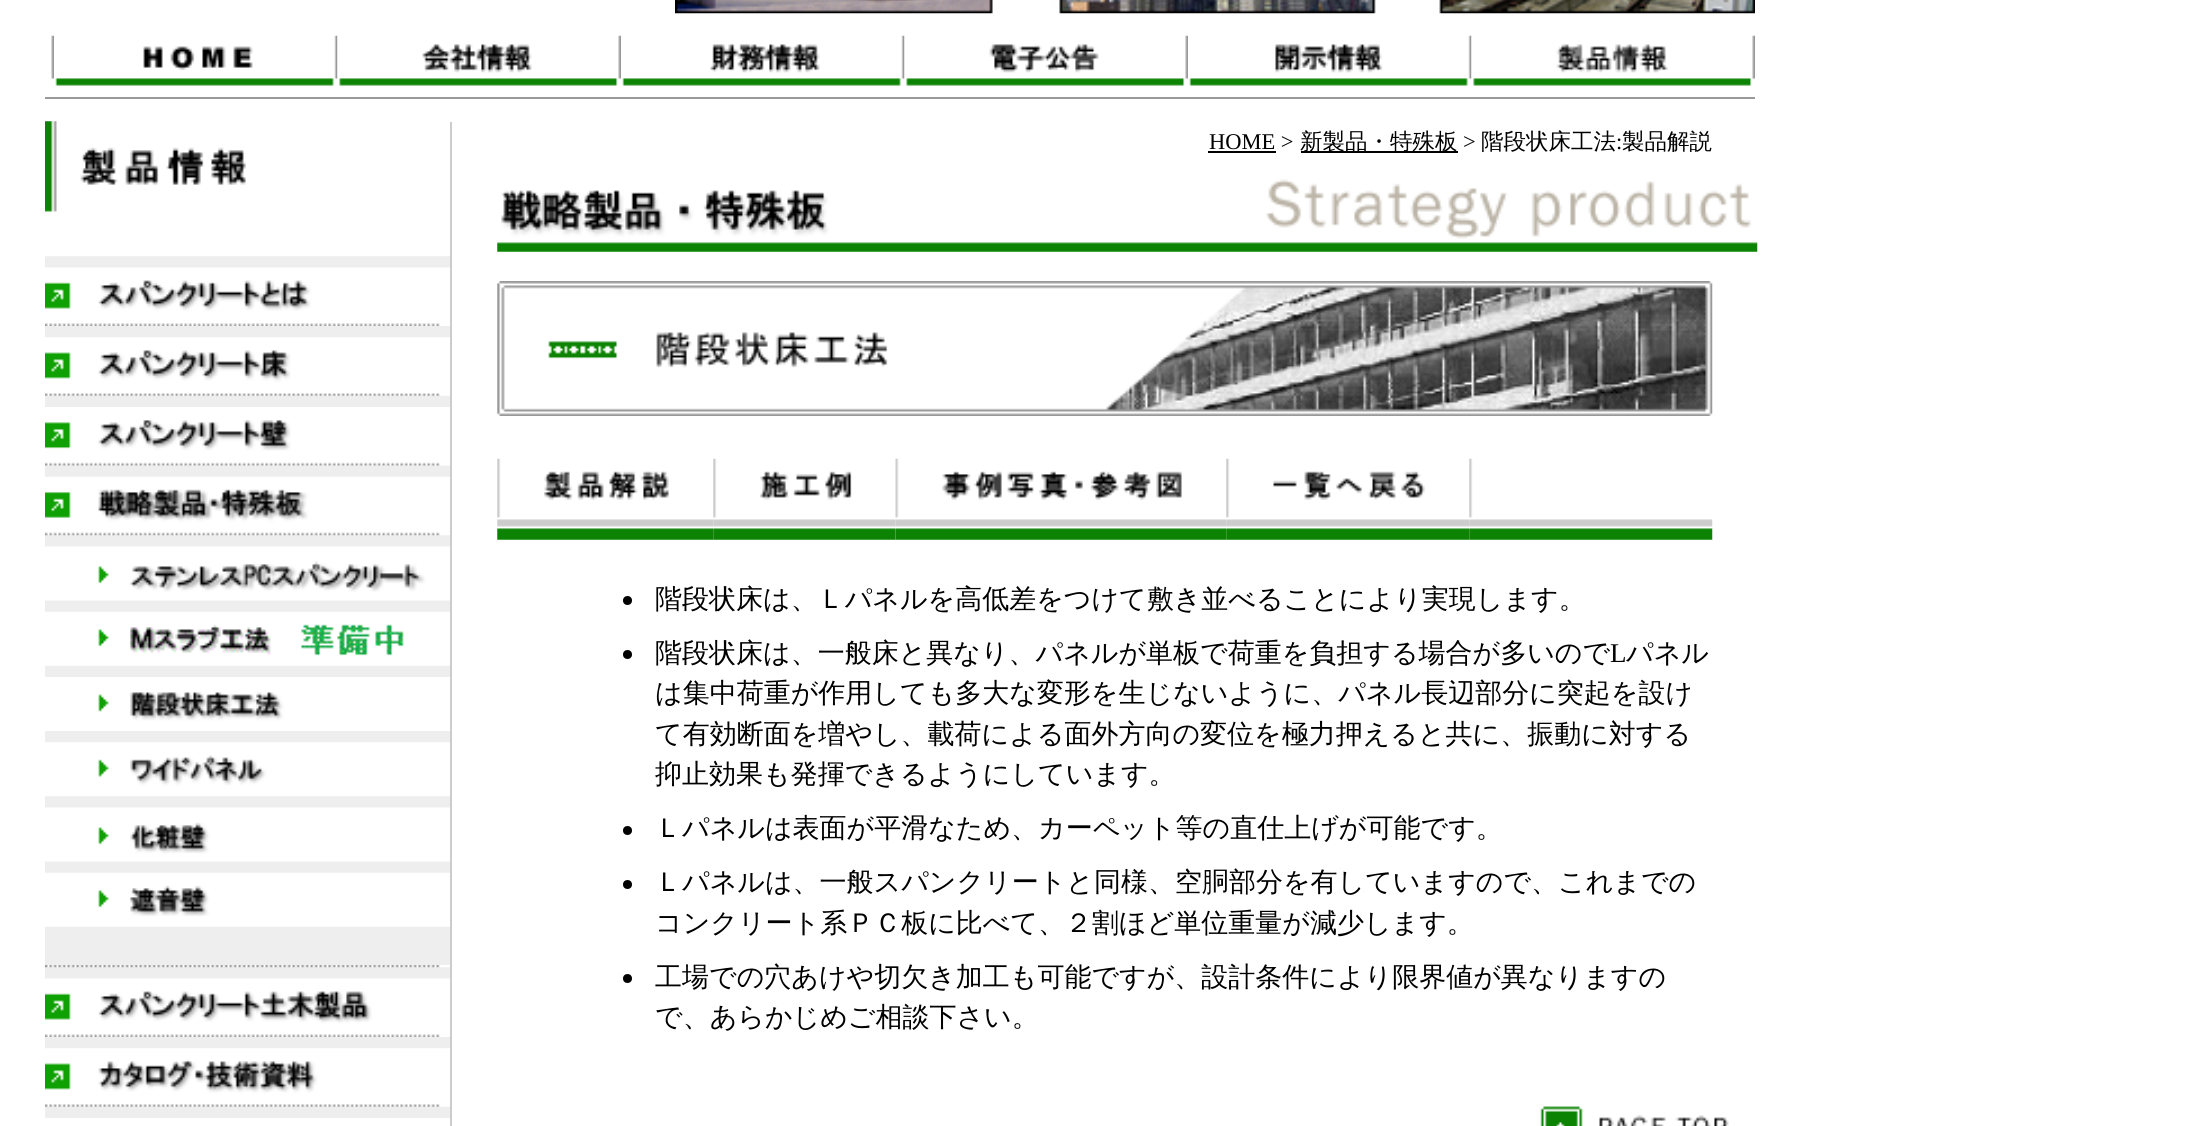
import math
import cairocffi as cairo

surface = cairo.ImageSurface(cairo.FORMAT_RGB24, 2208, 1126)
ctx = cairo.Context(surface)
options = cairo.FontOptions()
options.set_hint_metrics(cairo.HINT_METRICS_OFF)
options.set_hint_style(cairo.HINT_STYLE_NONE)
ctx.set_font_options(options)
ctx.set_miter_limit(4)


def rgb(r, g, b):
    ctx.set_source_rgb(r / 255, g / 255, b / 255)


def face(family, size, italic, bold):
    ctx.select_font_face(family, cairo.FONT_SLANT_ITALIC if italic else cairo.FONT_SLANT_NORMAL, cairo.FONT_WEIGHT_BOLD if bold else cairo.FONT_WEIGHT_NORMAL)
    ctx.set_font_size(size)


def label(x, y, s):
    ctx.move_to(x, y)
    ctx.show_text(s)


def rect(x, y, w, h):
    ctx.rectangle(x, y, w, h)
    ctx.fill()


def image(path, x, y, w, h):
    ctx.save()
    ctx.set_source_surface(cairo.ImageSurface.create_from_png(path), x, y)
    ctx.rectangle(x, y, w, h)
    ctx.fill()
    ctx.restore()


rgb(255, 255, 255)
ctx.paint()
image('image0.png', 675, 0, 1080, 14)
rgb(153, 153, 153)
rect(45, 97, 1710, 2)
image('image1.png', 51, 35, 3, 45)
image('image2.png', 55, 35, 283, 51)
image('image3.png', 337, 35, 284, 51)
image('image4.png', 622, 35, 283, 51)
image('image5.png', 904, 35, 284, 51)
image('image6.png', 1189, 35, 283, 51)
image('image7.png', 1471, 35, 284, 51)
rgb(204, 204, 204)
rect(450, 122, 2, 1004)
rgb(238, 238, 238)
rect(45, 256, 405, 862)
image('image8.png', 45, 121, 405, 136)
image('image9.png', 45, 267, 405, 59)
image('image10.png', 45, 337, 405, 59)
image('image11.png', 45, 407, 405, 59)
image('image12.png', 45, 476, 405, 60)
image('image13.png', 45, 546, 405, 55)
image('image14.png', 45, 611, 405, 55)
image('image15.png', 45, 677, 405, 54)
image('image16.png', 45, 742, 405, 55)
image('image17.png', 45, 807, 405, 55)
image('image18.png', 45, 872, 405, 55)
image('image19.png', 45, 965, 405, 3)
image('image20.png', 45, 978, 405, 59)
image('image21.png', 45, 1048, 405, 59)
face('Liberation Serif', 22.5, 0, 0)
rgb(0, 0, 0)
label(1209, 149, 'HOME >')
rect(1208, 151, 68, 2)
rect(1301, 151, 157, 2)
face('WenQuanYi Zen Hei Medium', 22.5, 0, 0)
label(1300, 149, '新製品・特殊板')
face('Liberation Serif', 22.5, 0, 0)
label(1463, 149, '>')
face('WenQuanYi Zen Hei Medium', 22.5, 0, 0)
label(1481, 149, '階段状床工法')
face('Liberation Serif', 22.5, 0, 0)
label(1616, 149, ':')
face('WenQuanYi Zen Hei Medium', 22.5, 0, 0)
label(1622, 149, '製品解説')
image('image22.png', 497, 179, 1261, 73)
image('image23.png', 497, 281, 1216, 135)
image('image24.png', 497, 458, 217, 82)
image('image25.png', 713, 458, 183, 82)
image('image26.png', 895, 458, 332, 82)
image('image27.png', 1226, 458, 244, 82)
image('image28.png', 1469, 458, 244, 82)
ctx.arc(627.5, 600.5, 4.5, 0, 2 * math.pi)
ctx.fill()
face('WenQuanYi Zen Hei Medium', 27, 0, 0)
label(655, 608, '階段状床は、Ｌパネルを高低差をつけて敷き並べることにより実現します。')
ctx.new_path()
ctx.arc(627.5, 654.5, 4.5, 0, 2 * math.pi)
ctx.fill()
label(655, 662, '階段状床は、一般床と異なり、パネルが単板で荷重を負担する場合が多いので')
face('Liberation Serif', 27, 0, 0)
label(1610, 662, 'L')
face('WenQuanYi Zen Hei Medium', 27, 0, 0)
label(1626, 662, 'パネル')
label(655, 702, 'は集中荷重が作用しても多大な変形を生じないように、パネル長辺部分に突起を設け')
label(655, 743, 'て有効断面を増やし、載荷による面外方向の変位を極力押えると共に、振動に対する')
label(655, 783, '抑止効果も発揮できるようにしています。')
ctx.new_path()
ctx.arc(627.5, 830.5, 4.5, 0, 2 * math.pi)
ctx.fill()
label(655, 837, 'Ｌパネルは表面が平滑なため、カーペット等の直仕上げが可能です。')
ctx.new_path()
ctx.arc(627.5, 884.5, 4.5, 0, 2 * math.pi)
ctx.fill()
label(655, 891, 'Ｌパネルは、一般スパンクリートと同様、空胴部分を有していますので、これまでの')
label(655, 932, 'コンクリート系ＰＣ板に比べて、２割ほど単位重量が減少します。')
ctx.new_path()
ctx.arc(627.5, 978.5, 4.5, 0, 2 * math.pi)
ctx.fill()
label(655, 986, '工場での穴あけや切欠き加工も可能ですが、設計条件により限界値が異なりますの')
label(655, 1026, 'で、あらかじめご相談下さい。')
image('image29.png', 1540, 1106, 189, 20)
surface.write_to_png('render.png')
